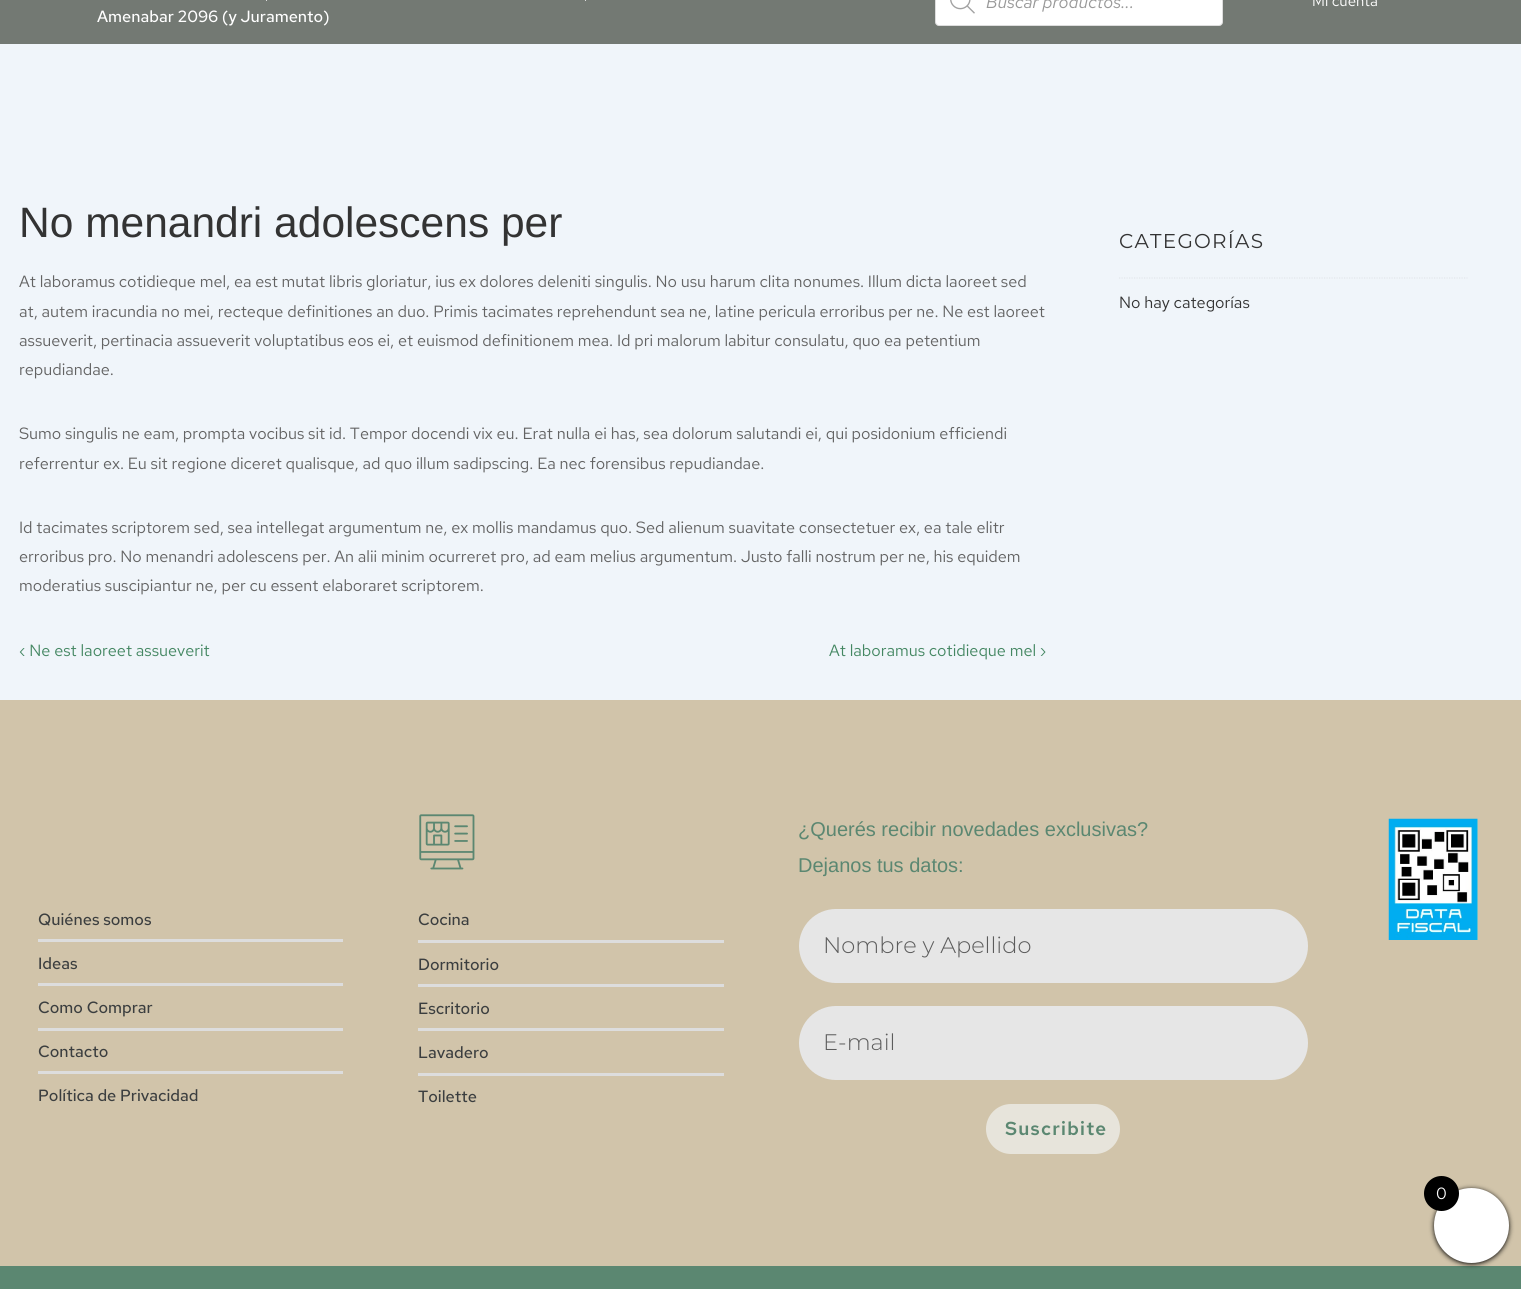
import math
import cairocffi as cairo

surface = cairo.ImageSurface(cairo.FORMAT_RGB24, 1521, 1289)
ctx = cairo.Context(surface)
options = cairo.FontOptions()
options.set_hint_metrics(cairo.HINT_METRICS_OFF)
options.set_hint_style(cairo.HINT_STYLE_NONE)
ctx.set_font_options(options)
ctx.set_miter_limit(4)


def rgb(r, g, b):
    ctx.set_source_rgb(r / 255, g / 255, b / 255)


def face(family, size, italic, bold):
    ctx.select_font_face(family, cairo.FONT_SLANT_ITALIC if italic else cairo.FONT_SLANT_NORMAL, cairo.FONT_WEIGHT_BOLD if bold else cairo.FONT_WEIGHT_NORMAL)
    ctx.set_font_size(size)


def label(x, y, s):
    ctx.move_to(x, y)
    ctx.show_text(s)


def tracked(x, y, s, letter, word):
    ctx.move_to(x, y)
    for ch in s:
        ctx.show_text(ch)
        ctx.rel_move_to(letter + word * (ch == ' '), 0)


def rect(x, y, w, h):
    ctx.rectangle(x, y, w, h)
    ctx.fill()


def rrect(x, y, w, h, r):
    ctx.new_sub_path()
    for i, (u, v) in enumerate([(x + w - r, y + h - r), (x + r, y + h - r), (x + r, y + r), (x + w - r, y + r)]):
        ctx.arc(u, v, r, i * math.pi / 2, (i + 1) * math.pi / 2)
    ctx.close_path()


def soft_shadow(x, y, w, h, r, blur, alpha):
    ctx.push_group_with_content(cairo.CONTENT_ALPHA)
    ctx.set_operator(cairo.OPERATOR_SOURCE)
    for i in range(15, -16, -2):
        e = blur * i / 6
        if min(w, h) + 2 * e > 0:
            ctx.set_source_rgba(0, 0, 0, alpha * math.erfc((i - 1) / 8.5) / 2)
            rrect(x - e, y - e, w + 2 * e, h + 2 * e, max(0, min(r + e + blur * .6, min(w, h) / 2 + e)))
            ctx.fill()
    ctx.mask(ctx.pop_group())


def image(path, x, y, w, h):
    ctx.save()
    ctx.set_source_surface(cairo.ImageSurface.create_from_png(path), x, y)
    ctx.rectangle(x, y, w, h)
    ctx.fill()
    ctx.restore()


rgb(240, 245, 250)
ctx.paint()
rgb(115, 121, 115)
rect(0, 0, 1521, 44)
rgb(255, 255, 255)
rrect(935.5, -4.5, 287, 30, 3.5)
ctx.fill_preserve()
rgb(221, 221, 221)
ctx.set_line_width(1)
ctx.stroke()
image('image0.png', 950, 0, 25, 14)
face('Red Hat Text', 17.5, 1, 0)
rgb(153, 153, 153)
label(986, 8, 'Buscar productos...')
face('Red Hat Text', 15, 0, 0)
rgb(255, 255, 255)
label(1312, 6, 'Mi cuenta')
rgb(221, 221, 221)
rect(266, 0, 1, 1)
rect(585, 0, 1, 1)
face('Red Hat Text Medium', 16.25, 0, 0)
rgb(255, 255, 255)
label(97, 22, 'Amenabar 2096 (y Juramento)')
face('Liberation Sans', 42.5, 0, 0)
rgb(51, 51, 51)
label(19, 237, 'No menandri adolescens per')
face('Red Hat Text', 16.25, 0, 0)
rgb(99, 99, 99)
label(19, 287, 'At laboramus cotidieque mel, ea est mutat libris gloriatur, ius ex dolores deleniti singulis. No usu harum clita nonumes. Illum dicta laoreet sed')
label(19, 317, 'at, autem iracundia no mei, recteque definitiones an duo. Primis tacimates reprehendunt sea ne, latine pericula erroribus per ne. Ne est laoreet')
label(19, 346, 'assueverit, pertinacia assueverit voluptatibus eos ei, et euismod definitionem mea. Id pri malorum labitur consulatu, quo ea petentium')
label(19, 375, 'repudiandae.')
label(19, 439, 'Sumo singulis ne eam, prompta vocibus sit id. Tempor docendi vix eu. Erat nulla ei has, sea dolorum salutandi ei, qui posidonium efficiendi')
label(19, 469, 'referrentur ex. Eu sit regione diceret qualisque, ad quo illum sadipscing. Ea nec forensibus repudiandae.')
label(19, 533, 'Id tacimates scriptorem sed, sea intellegat argumentum ne, ex mollis mandamus quo. Sed alienum suavitate consectetuer ex, ea tale elitr')
label(19, 562, 'erroribus pro. No menandri adolescens per. An alii minim ocurreret pro, ad eam melius argumentum. Justo falli nostrum per ne, his equidem')
label(19, 591, 'moderatius suscipiantur ne, per cu essent elaboraret scriptorem.')
rgb(68, 135, 98)
label(19, 656, '‹ Ne est laoreet assueverit')
label(829, 656, 'At laboramus cotidieque mel ›')
face('Montserrat', 20, 0, 0)
rgb(51, 51, 51)
tracked(1119, 248, 'CATEGORÍAS', 1.25, 0)
ctx.new_path()
ctx.move_to(1119, 278)
ctx.line_to(1467.5, 278)
rgb(226, 230, 234)
ctx.set_line_width(1.2)
ctx.set_dash([1.25, 1.25])
ctx.stroke()
face('Red Hat Text', 16.25, 0, 0)
rgb(51, 51, 51)
label(1119, 308, 'No hay categorías')
rgb(209, 196, 170)
rect(0, 700, 1521, 566)
face('Red Hat Text Medium', 16.25, 0, 0)
rgb(59, 62, 63)
label(38, 925, 'Quiénes somos')
rgb(221, 221, 221)
rect(38, 939, 305, 3)
rgb(59, 62, 63)
label(38, 969, 'Ideas')
rgb(221, 221, 221)
rect(38, 983, 305, 3)
rgb(59, 62, 63)
label(38, 1013, 'Como Comprar')
rgb(221, 221, 221)
rect(38, 1028, 305, 3)
rgb(59, 62, 63)
label(38, 1057, 'Contacto')
rgb(221, 221, 221)
rect(38, 1071, 305, 3)
rgb(59, 62, 63)
label(38, 1101, 'Política de Privacidad')
image('image1.png', 419, 814, 56, 56)
label(418, 925, 'Cocina')
rgb(221, 221, 221)
rect(418, 940, 306, 3)
rgb(59, 62, 63)
label(418, 970, 'Dormitorio')
rgb(221, 221, 221)
rect(418, 984, 306, 3)
rgb(59, 62, 63)
label(418, 1014, 'Escritorio')
rgb(221, 221, 221)
rect(418, 1028, 306, 3)
rgb(59, 62, 63)
label(418, 1058, 'Lavadero')
rgb(221, 221, 221)
rect(418, 1073, 306, 3)
rgb(59, 62, 63)
label(418, 1102, 'Toilette')
face('Liberation Sans', 20, 0, 0)
rgb(91, 135, 113)
label(798, 836, '¿Querés recibir novedades exclusivas?')
label(798, 872, 'Dejanos tus datos:')
rgb(230, 230, 230)
rrect(799, 909, 509, 74, 37)
ctx.fill()
face('Montserrat Light', 22.5, 0, 0)
rgb(92, 92, 92)
label(823, 953, 'Nombre y Apellido')
rgb(230, 230, 230)
rrect(799, 1006, 509, 74, 37)
ctx.fill()
rgb(92, 92, 92)
label(823, 1050, 'E-mail')
rgb(231, 228, 219)
rrect(986, 1104, 134, 50, 25)
ctx.fill()
face('Red Hat Text SemiBold', 18.75, 0, 0)
rgb(91, 135, 113)
tracked(1005, 1135, 'Suscribite', 1.25, 0)
image('image2.png', 1388, 818, 90, 122)
rect(0, 1266, 1521, 23)
rgb(0, 0, 0)
soft_shadow(1434, 1189, 75, 75, 37.5, 2.5, 1)
rgb(255, 255, 255)
ctx.arc(1471.5, 1225.5, 37.5, 0, 2 * math.pi)
ctx.fill()
rgb(0, 0, 0)
ctx.arc(1441.5, 1193.5, 17.5, 0, 2 * math.pi)
ctx.fill()
face('Red Hat Text', 16.25, 0, 0)
rgb(255, 255, 255)
label(1436, 1199, '0')
surface.write_to_png('render.png')
